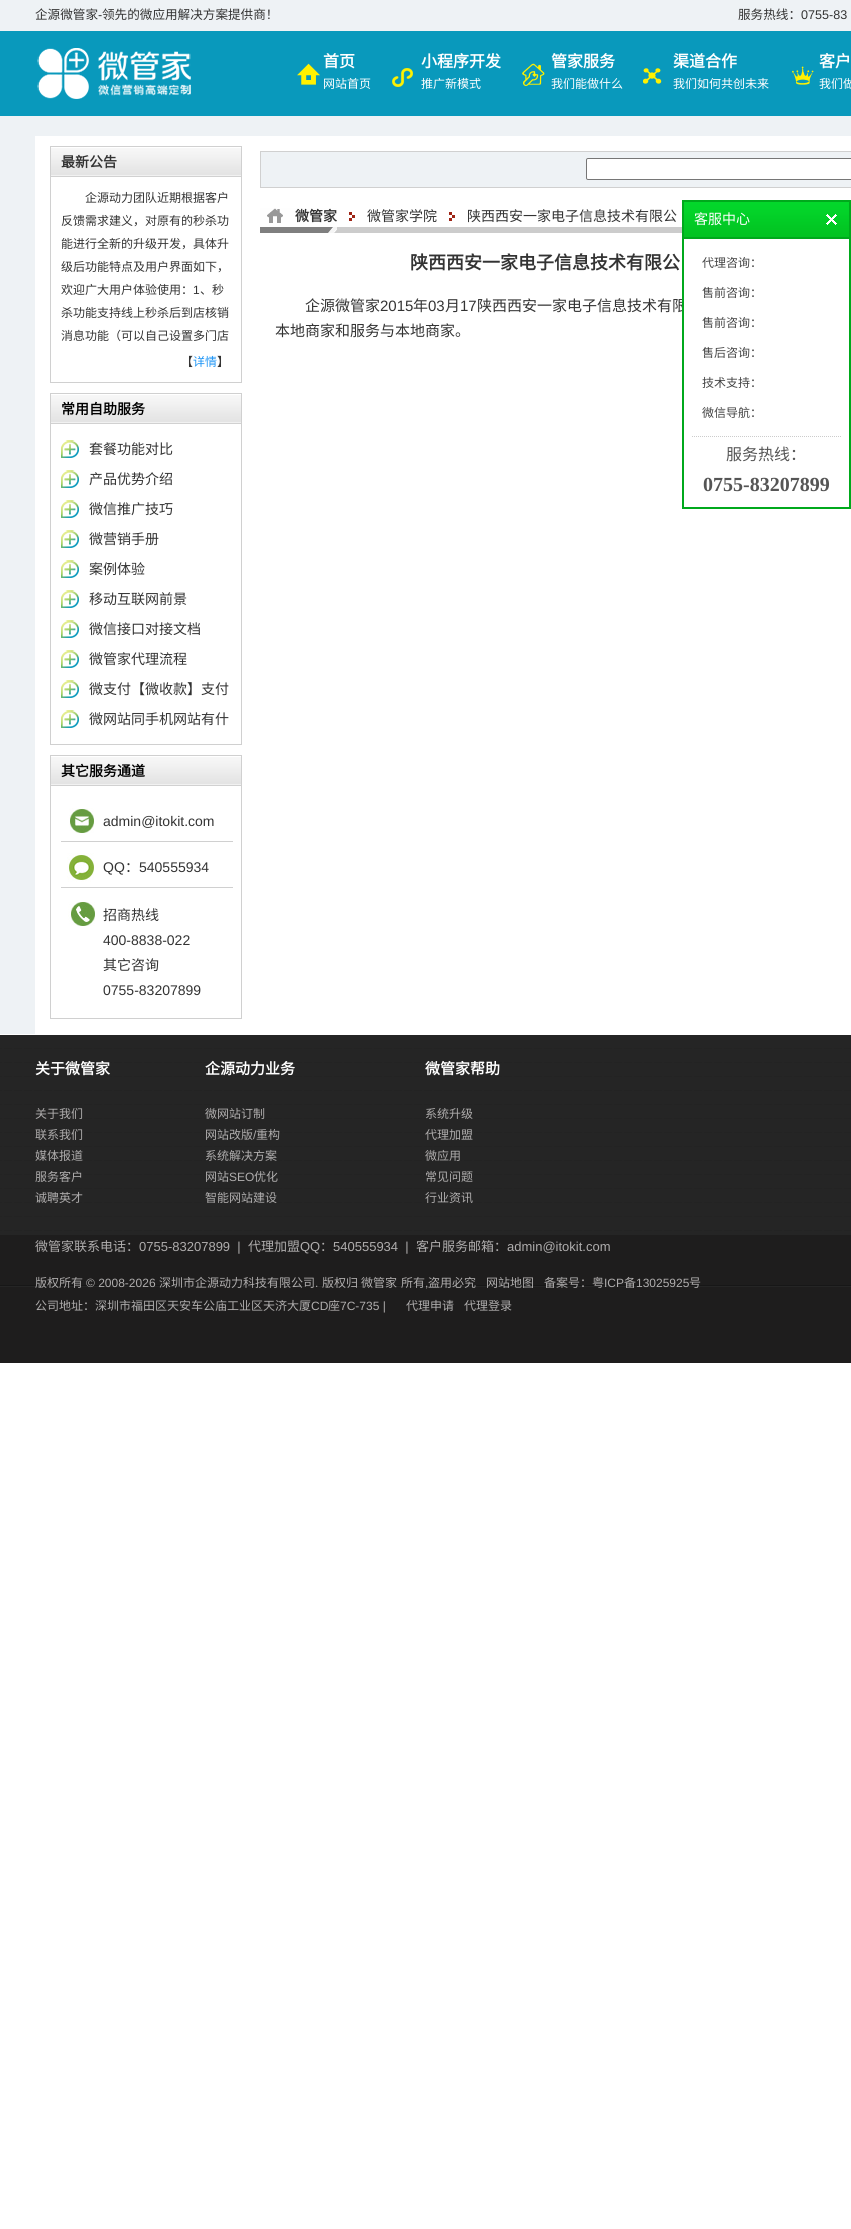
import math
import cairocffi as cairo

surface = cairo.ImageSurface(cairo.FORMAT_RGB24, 851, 2229)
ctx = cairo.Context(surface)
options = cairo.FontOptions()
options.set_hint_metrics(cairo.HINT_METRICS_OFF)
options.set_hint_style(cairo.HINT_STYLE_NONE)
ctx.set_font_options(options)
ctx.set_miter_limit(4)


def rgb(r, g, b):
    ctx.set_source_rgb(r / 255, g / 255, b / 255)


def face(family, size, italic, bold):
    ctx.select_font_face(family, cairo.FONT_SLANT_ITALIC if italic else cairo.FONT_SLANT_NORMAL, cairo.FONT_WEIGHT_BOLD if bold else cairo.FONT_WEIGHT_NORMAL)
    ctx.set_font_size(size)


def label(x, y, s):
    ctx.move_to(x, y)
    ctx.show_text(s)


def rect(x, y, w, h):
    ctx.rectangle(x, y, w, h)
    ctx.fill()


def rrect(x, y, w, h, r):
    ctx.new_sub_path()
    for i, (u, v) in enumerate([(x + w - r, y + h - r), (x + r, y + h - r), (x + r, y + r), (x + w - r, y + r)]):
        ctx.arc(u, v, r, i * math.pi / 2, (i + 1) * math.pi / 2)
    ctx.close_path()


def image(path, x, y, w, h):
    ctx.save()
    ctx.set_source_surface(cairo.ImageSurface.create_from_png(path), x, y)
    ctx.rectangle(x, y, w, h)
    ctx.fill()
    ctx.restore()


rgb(255, 255, 255)
ctx.paint()
rgb(238, 242, 245)
rect(0, 0, 851, 31)
face('Noto Sans CJK SC', 12.6, 0, 0)
rgb(51, 51, 51)
label(35, 19, '企源微管家')
face('Liberation Sans', 12.6, 0, 0)
label(98, 19, '-')
face('Noto Sans CJK SC', 12.6, 0, 0)
label(102, 19, '领先的微应用解决方案提供商！')
label(738, 19, '服务热线：')
face('Liberation Sans', 12.6, 0, 0)
label(801, 19, '0755-83')
rgb(9, 153, 188)
rect(0, 31, 851, 85)
image('image0.png', 37, 48, 154, 51)
face('Noto Sans CJK SC', 16, 0, 1)
rgb(255, 255, 255)
label(323, 67, '首页')
image('image1.png', 297, 63, 23, 22)
face('Noto Sans CJK SC', 12, 0, 0)
label(323, 88, '网站首页')
face('Noto Sans CJK SC', 16, 0, 1)
label(421, 67, '小程序开发')
image('image2.png', 392, 68, 21, 19)
face('Noto Sans CJK SC', 12, 0, 0)
label(421, 88, '推广新模式')
face('Noto Sans CJK SC', 16, 0, 1)
label(551, 67, '管家服务')
image('image3.png', 522, 63, 23, 23)
face('Noto Sans CJK SC', 12, 0, 0)
label(551, 88, '我们能做什么')
face('Noto Sans CJK SC', 16, 0, 1)
label(673, 67, '渠道合作')
image('image4.png', 643, 68, 19, 16)
face('Noto Sans CJK SC', 12, 0, 0)
label(673, 88, '我们如何共创未来')
face('Noto Sans CJK SC', 16, 0, 1)
label(819, 67, '客户')
image('image5.png', 792, 66, 22, 19)
face('Noto Sans CJK SC', 12, 0, 0)
label(819, 88, '我们做')
rgb(238, 242, 245)
rect(0, 116, 851, 918)
rgb(255, 255, 255)
rect(35, 136, 816, 898)
ctx.rectangle(50.5, 146.5, 191, 236)
rgb(208, 208, 208)
ctx.set_line_width(1)
ctx.stroke()
image('image6.png', 51, 148, 190, 29)
face('Noto Sans CJK SC', 14, 0, 1)
rgb(51, 51, 51)
label(61, 167, '最新公告')
face('Noto Sans CJK SC', 12, 0, 0)
label(85, 202, '企源动力团队近期根据客户')
label(61, 225, '反馈需求建义，对原有的秒杀功')
label(61, 248, '能进行全新的升级开发，具体升')
label(61, 271, '级后功能特点及用户界面如下，')
label(61, 294, '欢迎广大用户体验使用：')
face('Liberation Sans', 12, 0, 0)
label(193, 294, '1')
face('Noto Sans CJK SC', 12, 0, 0)
label(200, 294, '、秒')
label(61, 317, '杀功能支持线上秒杀后到店核销')
label(61, 340, '消息功能（可以自己设置多门店')
label(181, 366, '【')
rgb(28, 148, 245)
label(193, 366, '详情')
rgb(51, 51, 51)
label(217, 366, '】')
ctx.rectangle(50.5, 393.5, 191, 351)
rgb(208, 208, 208)
ctx.stroke()
image('image6.png', 51, 395, 190, 29)
face('Noto Sans CJK SC', 14, 0, 1)
rgb(0, 0, 0)
label(61, 414, '常用自助服务')
image('image7.png', 61, 440, 18, 18)
face('Noto Sans CJK SC', 14, 0, 0)
rgb(51, 51, 51)
label(89, 454, '套餐功能对比')
image('image7.png', 61, 470, 18, 18)
label(89, 484, '产品优势介绍')
image('image7.png', 61, 500, 18, 18)
label(89, 514, '微信推广技巧')
image('image7.png', 61, 530, 18, 18)
label(89, 544, '微营销手册')
image('image7.png', 61, 560, 18, 18)
label(89, 574, '案例体验')
image('image7.png', 61, 590, 18, 18)
label(89, 604, '移动互联网前景')
image('image7.png', 61, 620, 18, 18)
label(89, 634, '微信接口对接文档')
image('image7.png', 61, 650, 18, 18)
label(89, 664, '微管家代理流程')
image('image7.png', 61, 680, 18, 18)
label(89, 694, '微支付【微收款】支付')
image('image7.png', 61, 710, 18, 18)
label(89, 724, '微网站同手机网站有什')
ctx.rectangle(50.5, 755.5, 191, 263)
rgb(208, 208, 208)
ctx.stroke()
image('image6.png', 51, 757, 190, 29)
face('Noto Sans CJK SC', 14, 0, 1)
rgb(0, 0, 0)
label(61, 776, '其它服务通道')
image('image8.png', 69, 808, 25, 25)
rgb(208, 208, 208)
rect(61, 841, 172, 1)
face('Liberation Sans', 14, 0, 0)
rgb(51, 51, 51)
label(103, 826, 'admin@itokit.com')
image('image9.png', 67, 853, 27, 29)
rgb(208, 208, 208)
rect(61, 887, 172, 1)
rgb(51, 51, 51)
label(103, 872, 'QQ')
face('Noto Sans CJK SC', 14, 0, 0)
label(125, 872, '：')
face('Liberation Sans', 14, 0, 0)
label(139, 872, '540555934')
image('image10.png', 68, 902, 27, 24)
face('Noto Sans CJK SC', 14, 0, 0)
label(103, 920, '招商热线')
face('Liberation Sans', 14, 0, 0)
label(103, 945, '400-8838-022')
face('Noto Sans CJK SC', 14, 0, 0)
label(103, 970, '其它咨询')
face('Liberation Sans', 14, 0, 0)
label(103, 995, '0755-83207899')
rgb(238, 242, 245)
ctx.rectangle(260.5, 151.5, 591, 36)
ctx.fill_preserve()
rgb(208, 208, 208)
ctx.stroke()
rgb(255, 255, 255)
rrect(586.5, 158.5, 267, 21, 1.5)
ctx.fill_preserve()
rgb(118, 118, 118)
ctx.stroke()
rgb(204, 204, 204)
rect(337, 227, 345, 6)
image('image11.png', 260, 208, 77, 25)
face('Noto Sans CJK SC', 14, 0, 1)
rgb(51, 51, 51)
label(295, 221, '微管家')
image('image12.png', 349, 212, 6, 9)
face('Noto Sans CJK SC', 14, 0, 0)
label(367, 221, '微管家学院')
image('image12.png', 449, 212, 6, 9)
label(467, 221, '陕西西安一家电子信息技术有限公')
face('Noto Sans CJK SC', 18, 0, 1)
label(410, 269, '陕西西安一家电子信息技术有限公')
face('Noto Sans CJK SC', 15, 0, 0)
label(305, 311, '企源微管家')
face('Liberation Sans', 15, 0, 0)
label(380, 311, '2015')
face('Noto Sans CJK SC', 15, 0, 0)
label(413, 311, '年')
face('Liberation Sans', 15, 0, 0)
label(428, 311, '03')
face('Noto Sans CJK SC', 15, 0, 0)
label(445, 311, '月')
face('Liberation Sans', 15, 0, 0)
label(460, 311, '17')
face('Noto Sans CJK SC', 15, 0, 0)
label(477, 311, '陕西西安一家电子信息技术有限')
label(275, 336, '本地商家和服务与本地商家。')
rgb(255, 255, 255)
rect(684, 299, 3, 13)
ctx.rectangle(683, 201, 167, 307)
rgb(0, 169, 28)
ctx.set_line_width(2)
ctx.stroke()
rect(684, 237, 165, 2)
image('image13.png', 684, 202, 165, 35)
face('Noto Sans CJK SC', 14, 0, 0)
rgb(255, 255, 255)
label(694, 224, '客服中心')
image('image14.png', 826, 214, 11, 11)
face('Noto Sans CJK SC', 12, 0, 0)
rgb(68, 68, 68)
label(702, 267, '代理咨询：')
label(702, 297, '售前咨询：')
label(702, 327, '售前咨询：')
label(702, 357, '售后咨询：')
label(702, 387, '技术支持：')
label(702, 417, '微信导航：')
ctx.new_path()
ctx.move_to(692, 436.5)
ctx.line_to(841, 436.5)
rgb(204, 204, 204)
ctx.set_line_width(1)
ctx.set_dash([1, 1])
ctx.stroke()
face('Noto Sans CJK SC', 16, 0, 0)
rgb(85, 85, 85)
label(726, 460, '服务热线：')
face('Liberation Serif', 20, 0, 1)
label(703, 491, '0755-83207899')
image('image15.png', 0, 1035, 851, 328)
face('Noto Sans CJK SC', 15, 0, 1)
rgb(255, 255, 255)
label(35, 1074, '关于微管家')
face('Noto Sans CJK SC', 12, 0, 0)
rgb(175, 173, 173)
label(35, 1118, '关于我们')
label(35, 1139, '联系我们')
label(35, 1160, '媒体报道')
label(35, 1181, '服务客户')
label(35, 1202, '诚聘英才')
face('Noto Sans CJK SC', 15, 0, 1)
rgb(255, 255, 255)
label(205, 1074, '企源动力业务')
face('Noto Sans CJK SC', 12, 0, 0)
rgb(175, 173, 173)
label(205, 1118, '微网站订制')
label(205, 1139, '网站改版')
face('Liberation Sans', 12, 0, 0)
label(253, 1139, '/')
face('Noto Sans CJK SC', 12, 0, 0)
label(256, 1139, '重构')
label(205, 1160, '系统解决方案')
label(205, 1181, '网站')
face('Liberation Sans', 12, 0, 0)
label(229, 1181, 'SEO')
face('Noto Sans CJK SC', 12, 0, 0)
label(254, 1181, '优化')
label(205, 1202, '智能网站建设')
face('Noto Sans CJK SC', 15, 0, 1)
rgb(255, 255, 255)
label(425, 1074, '微管家帮助')
face('Noto Sans CJK SC', 12, 0, 0)
rgb(175, 173, 173)
label(425, 1118, '系统升级')
label(425, 1139, '代理加盟')
label(425, 1160, '微应用')
label(425, 1181, '常见问题')
label(425, 1202, '行业资讯')
face('Noto Sans CJK SC', 13, 0, 0)
label(35, 1251, '微管家联系电话：')
face('Liberation Sans', 13, 0, 0)
label(139, 1251, '0755-83207899  |')
face('Noto Sans CJK SC', 13, 0, 0)
label(248, 1251, '代理加盟')
face('Liberation Sans', 13, 0, 0)
label(300, 1251, 'QQ')
face('Noto Sans CJK SC', 13, 0, 0)
label(320, 1251, '：')
face('Liberation Sans', 13, 0, 0)
label(333, 1251, '540555934  |')
face('Noto Sans CJK SC', 13, 0, 0)
label(416, 1251, '客户服务邮箱：')
face('Liberation Sans', 13, 0, 0)
label(507, 1251, 'admin@itokit.com')
face('Noto Sans CJK SC', 12, 0, 0)
label(35, 1287, '版权所有')
face('Liberation Sans', 12, 0, 0)
label(86, 1287, '© 2008-2026')
face('Noto Sans CJK SC', 12, 0, 0)
label(159, 1287, '深圳市企源动力科技有限公司')
face('Liberation Sans', 12, 0, 0)
label(315, 1287, '.')
face('Noto Sans CJK SC', 12, 0, 0)
label(322, 1287, '版权归')
label(361, 1287, '微管家')
label(401, 1287, '所有')
face('Liberation Sans', 12, 0, 0)
label(425, 1287, ',')
face('Noto Sans CJK SC', 12, 0, 0)
label(428, 1287, '盗用必究')
label(486, 1287, '网站地图')
label(544, 1287, '备案号：粤')
face('Liberation Sans', 12, 0, 0)
label(604, 1287, 'ICP')
face('Noto Sans CJK SC', 12, 0, 0)
label(624, 1287, '备')
face('Liberation Sans', 12, 0, 0)
label(636, 1287, '13025925')
face('Noto Sans CJK SC', 12, 0, 0)
label(689, 1287, '号')
label(35, 1310, '公司地址：深圳市福田区天安车公庙工业区天济大厦')
face('Liberation Sans', 12, 0, 0)
label(311, 1310, 'CD')
face('Noto Sans CJK SC', 12, 0, 0)
label(328, 1310, '座')
face('Liberation Sans', 12, 0, 0)
label(340, 1310, '7C-735 |')
face('Noto Sans CJK SC', 12, 0, 0)
label(406, 1310, '代理申请')
label(464, 1310, '代理登录')
surface.write_to_png('render.png')
